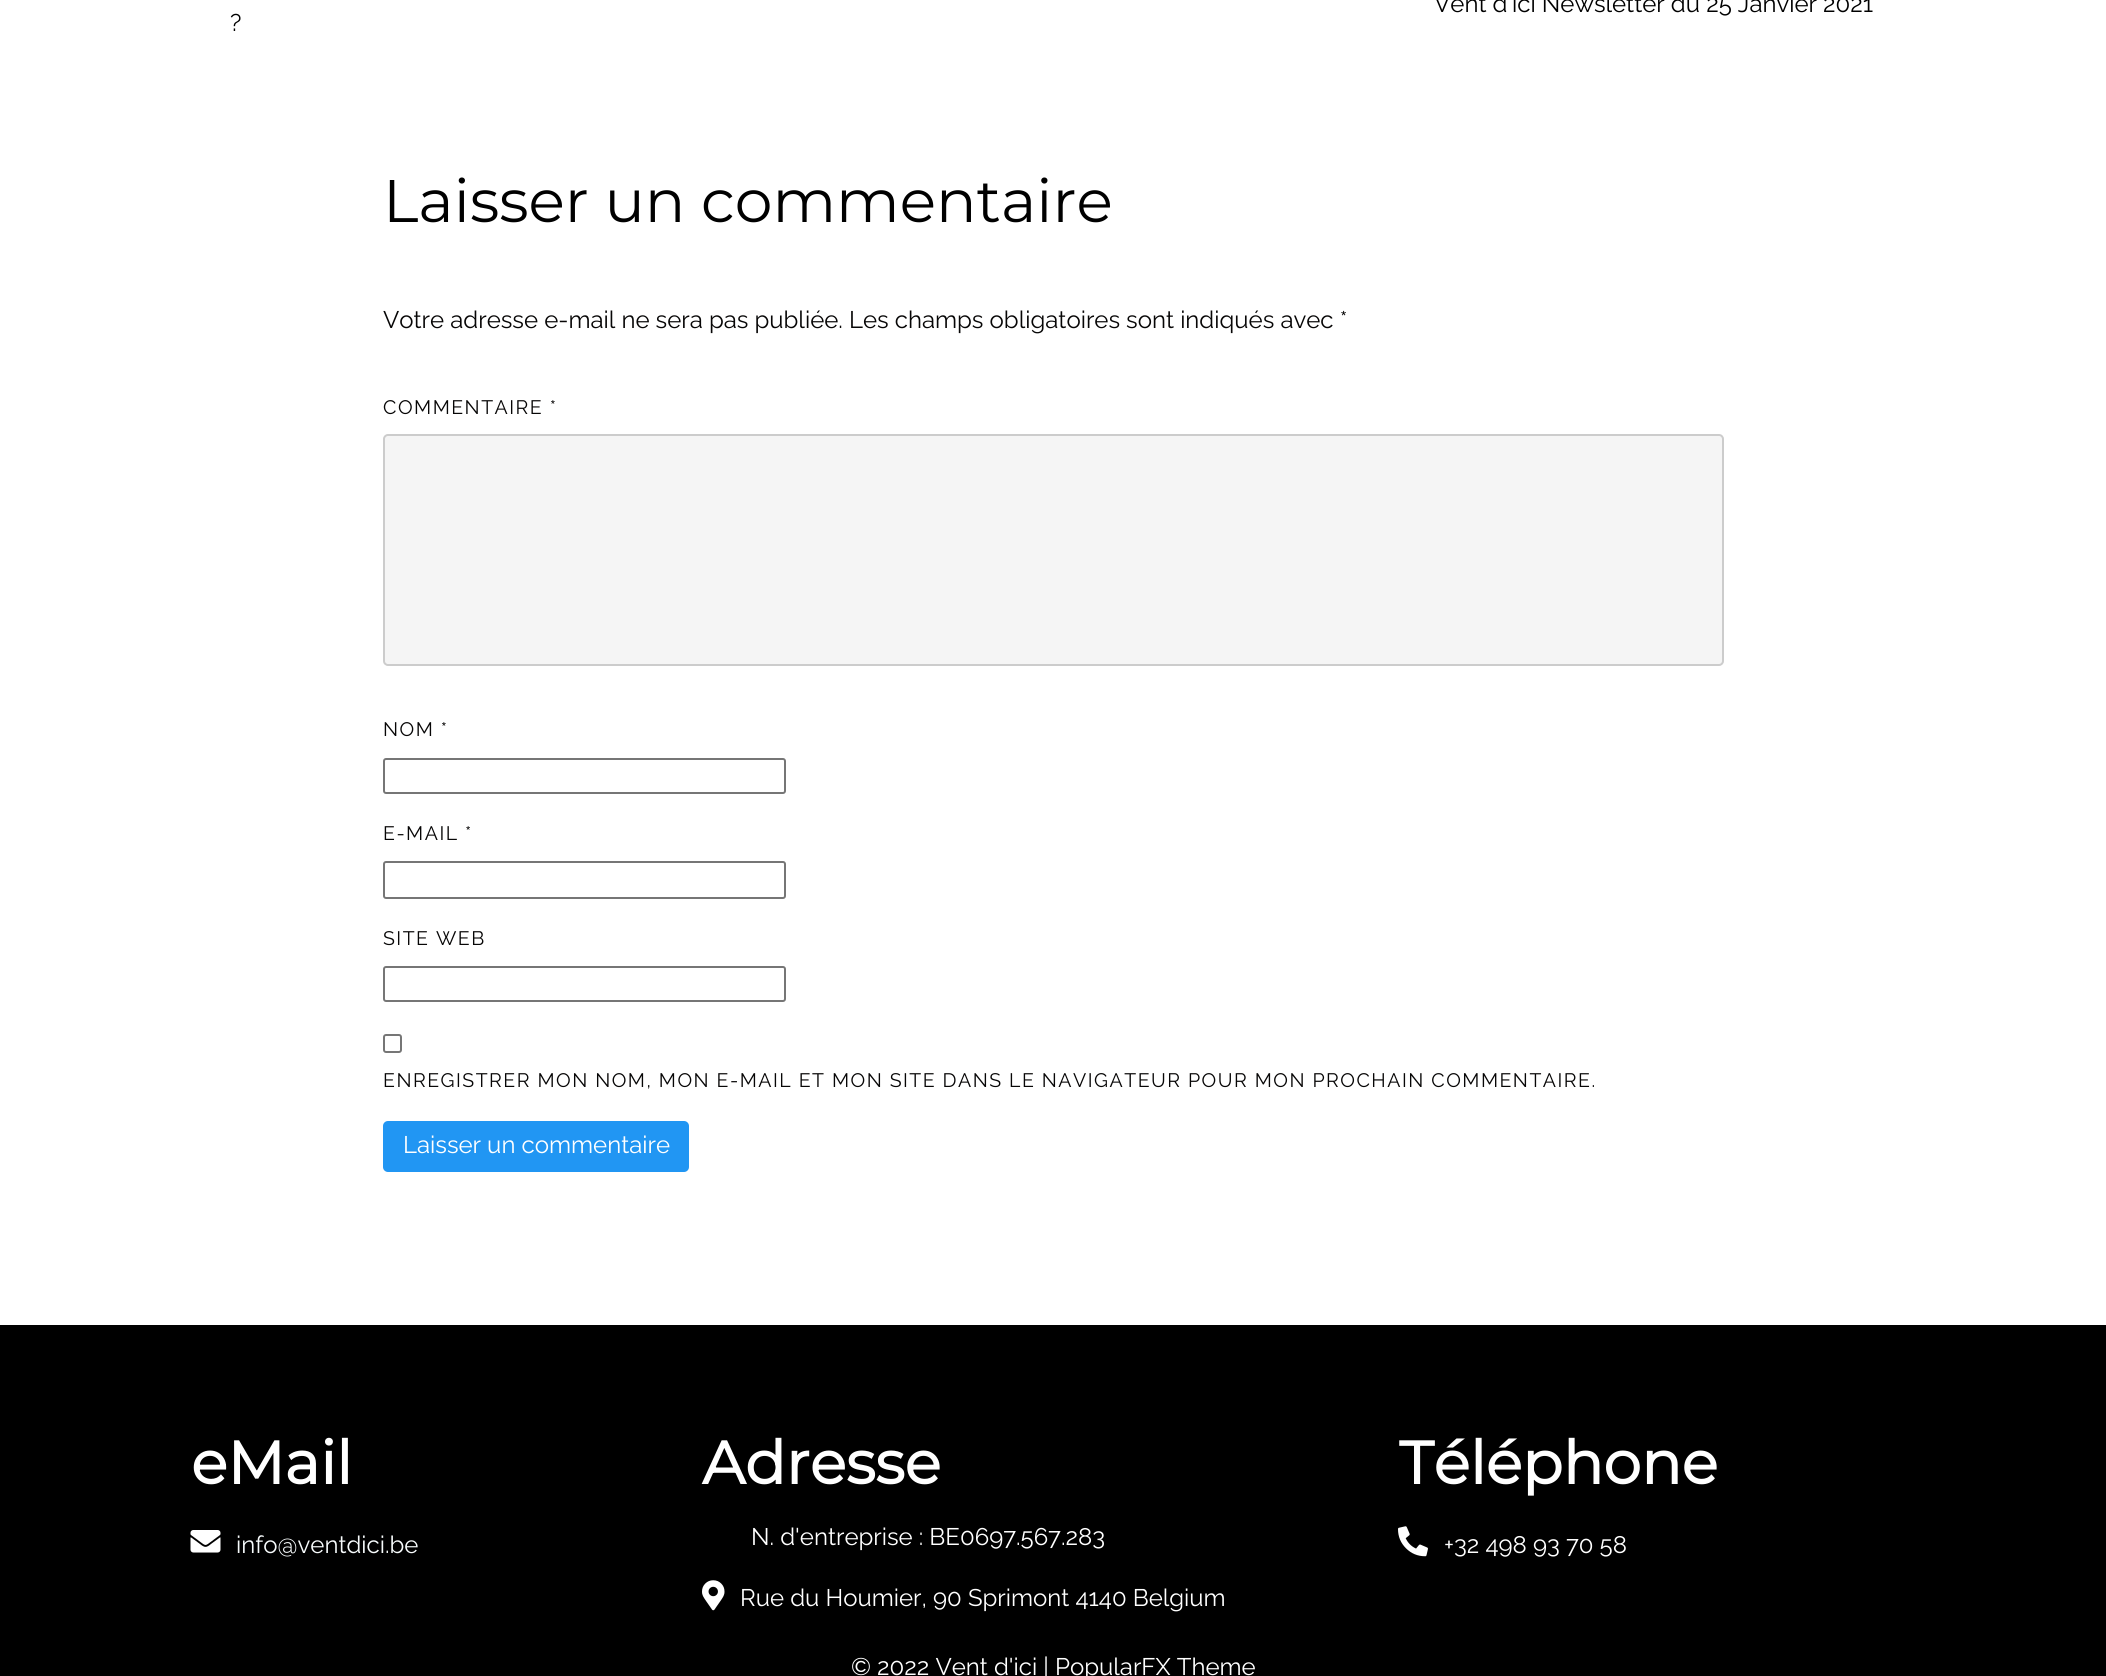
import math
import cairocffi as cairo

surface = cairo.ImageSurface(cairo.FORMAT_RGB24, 2106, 1676)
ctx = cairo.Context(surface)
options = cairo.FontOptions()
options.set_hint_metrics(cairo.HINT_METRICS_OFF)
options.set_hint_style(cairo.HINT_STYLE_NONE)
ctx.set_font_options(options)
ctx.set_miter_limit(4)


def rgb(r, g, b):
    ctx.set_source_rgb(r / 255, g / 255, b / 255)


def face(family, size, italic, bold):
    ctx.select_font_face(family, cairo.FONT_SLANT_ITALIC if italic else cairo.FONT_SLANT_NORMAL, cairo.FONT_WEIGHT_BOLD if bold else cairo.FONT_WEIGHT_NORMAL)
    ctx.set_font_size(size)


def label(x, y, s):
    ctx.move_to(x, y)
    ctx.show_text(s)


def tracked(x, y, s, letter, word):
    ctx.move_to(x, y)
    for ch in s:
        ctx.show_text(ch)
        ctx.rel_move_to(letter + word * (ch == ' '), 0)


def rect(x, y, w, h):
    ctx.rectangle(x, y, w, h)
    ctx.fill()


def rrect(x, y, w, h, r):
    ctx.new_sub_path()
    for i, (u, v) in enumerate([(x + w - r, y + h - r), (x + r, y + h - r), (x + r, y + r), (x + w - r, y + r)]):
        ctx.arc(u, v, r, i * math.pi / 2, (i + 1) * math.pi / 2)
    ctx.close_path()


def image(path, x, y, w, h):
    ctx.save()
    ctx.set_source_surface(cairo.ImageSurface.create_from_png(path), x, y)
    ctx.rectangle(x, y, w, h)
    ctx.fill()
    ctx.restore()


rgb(255, 255, 255)
ctx.paint()
face('Raleway Thin', 24, 0, 0)
rgb(0, 0, 0)
label(1434, 12, 'Vent d’ici Newsletter du 25 Janvier 2021')
label(230, 31, '?')
face('Montserrat Thin', 60, 0, 0)
label(383, 222, 'Laisser un commentaire')
face('Raleway Thin', 24, 0, 0)
rgb(7, 6, 6)
label(383, 328, 'Votre adresse e-mail ne sera pas publiée. Les champs obligatoires sont indiqués avec *')
face('Raleway Thin', 19.5, 0, 0)
tracked(383, 414, 'COMMENTAIRE *', 1.5, 0)
rgb(245, 245, 245)
rrect(384, 435, 1339, 230, 4)
ctx.fill_preserve()
rgb(204, 204, 204)
ctx.stroke()
rgb(7, 6, 6)
tracked(383, 736, 'NOM *', 1.5, 0)
rrect(384, 759, 401, 34, 2)
rgb(118, 118, 118)
ctx.stroke()
rgb(7, 6, 6)
tracked(383, 840, 'E-MAIL *', 1.5, 0)
rrect(384, 862, 401, 36, 2)
rgb(118, 118, 118)
ctx.stroke()
rgb(7, 6, 6)
tracked(383, 945, 'SITE WEB', 1.5, 0)
rrect(384, 967, 401, 34, 2)
rgb(118, 118, 118)
ctx.stroke()
rrect(384, 1035, 17, 17, 2)
ctx.stroke()
rgb(7, 6, 6)
tracked(383, 1087, 'ENREGISTRER MON NOM, MON E-MAIL ET MON SITE DANS LE NAVIGATEUR POUR MON PROCHAIN COMMENTAIRE.', 1.5, 0)
rgb(33, 150, 243)
rrect(383, 1121, 306, 51, 5)
ctx.fill()
face('Raleway Thin', 24, 0, 0)
rgb(255, 255, 255)
label(403, 1153, 'Laisser un commentaire')
rgb(0, 0, 0)
rect(0, 1325, 2106, 351)
face('Montserrat', 60, 0, 1)
rgb(255, 255, 255)
label(191, 1484, 'eMail')
image('image0.png', 190, 1530, 31, 23)
face('Raleway Thin', 24, 0, 0)
rgb(247, 251, 252)
label(236, 1553, 'info@ventdici.be')
face('Montserrat', 60, 0, 1)
rgb(255, 255, 255)
label(702, 1484, 'Adresse')
face('Raleway Thin', 24, 0, 0)
label(751, 1545, 'N. d\'entreprise : BE0697.567.283')
image('image1.png', 702, 1580, 23, 31)
label(740, 1606, 'Rue du Houmier, 90 Sprimont 4140 Belgium')
face('Montserrat', 60, 0, 1)
label(1399, 1484, 'Téléphone')
image('image2.png', 1398, 1526, 30, 31)
face('Raleway Thin', 24, 0, 0)
label(1444, 1553, '+32 498 93 70 58')
label(851, 1675, '© 2022 Vent d\'ici | PopularFX Theme')
surface.write_to_png('render.png')
